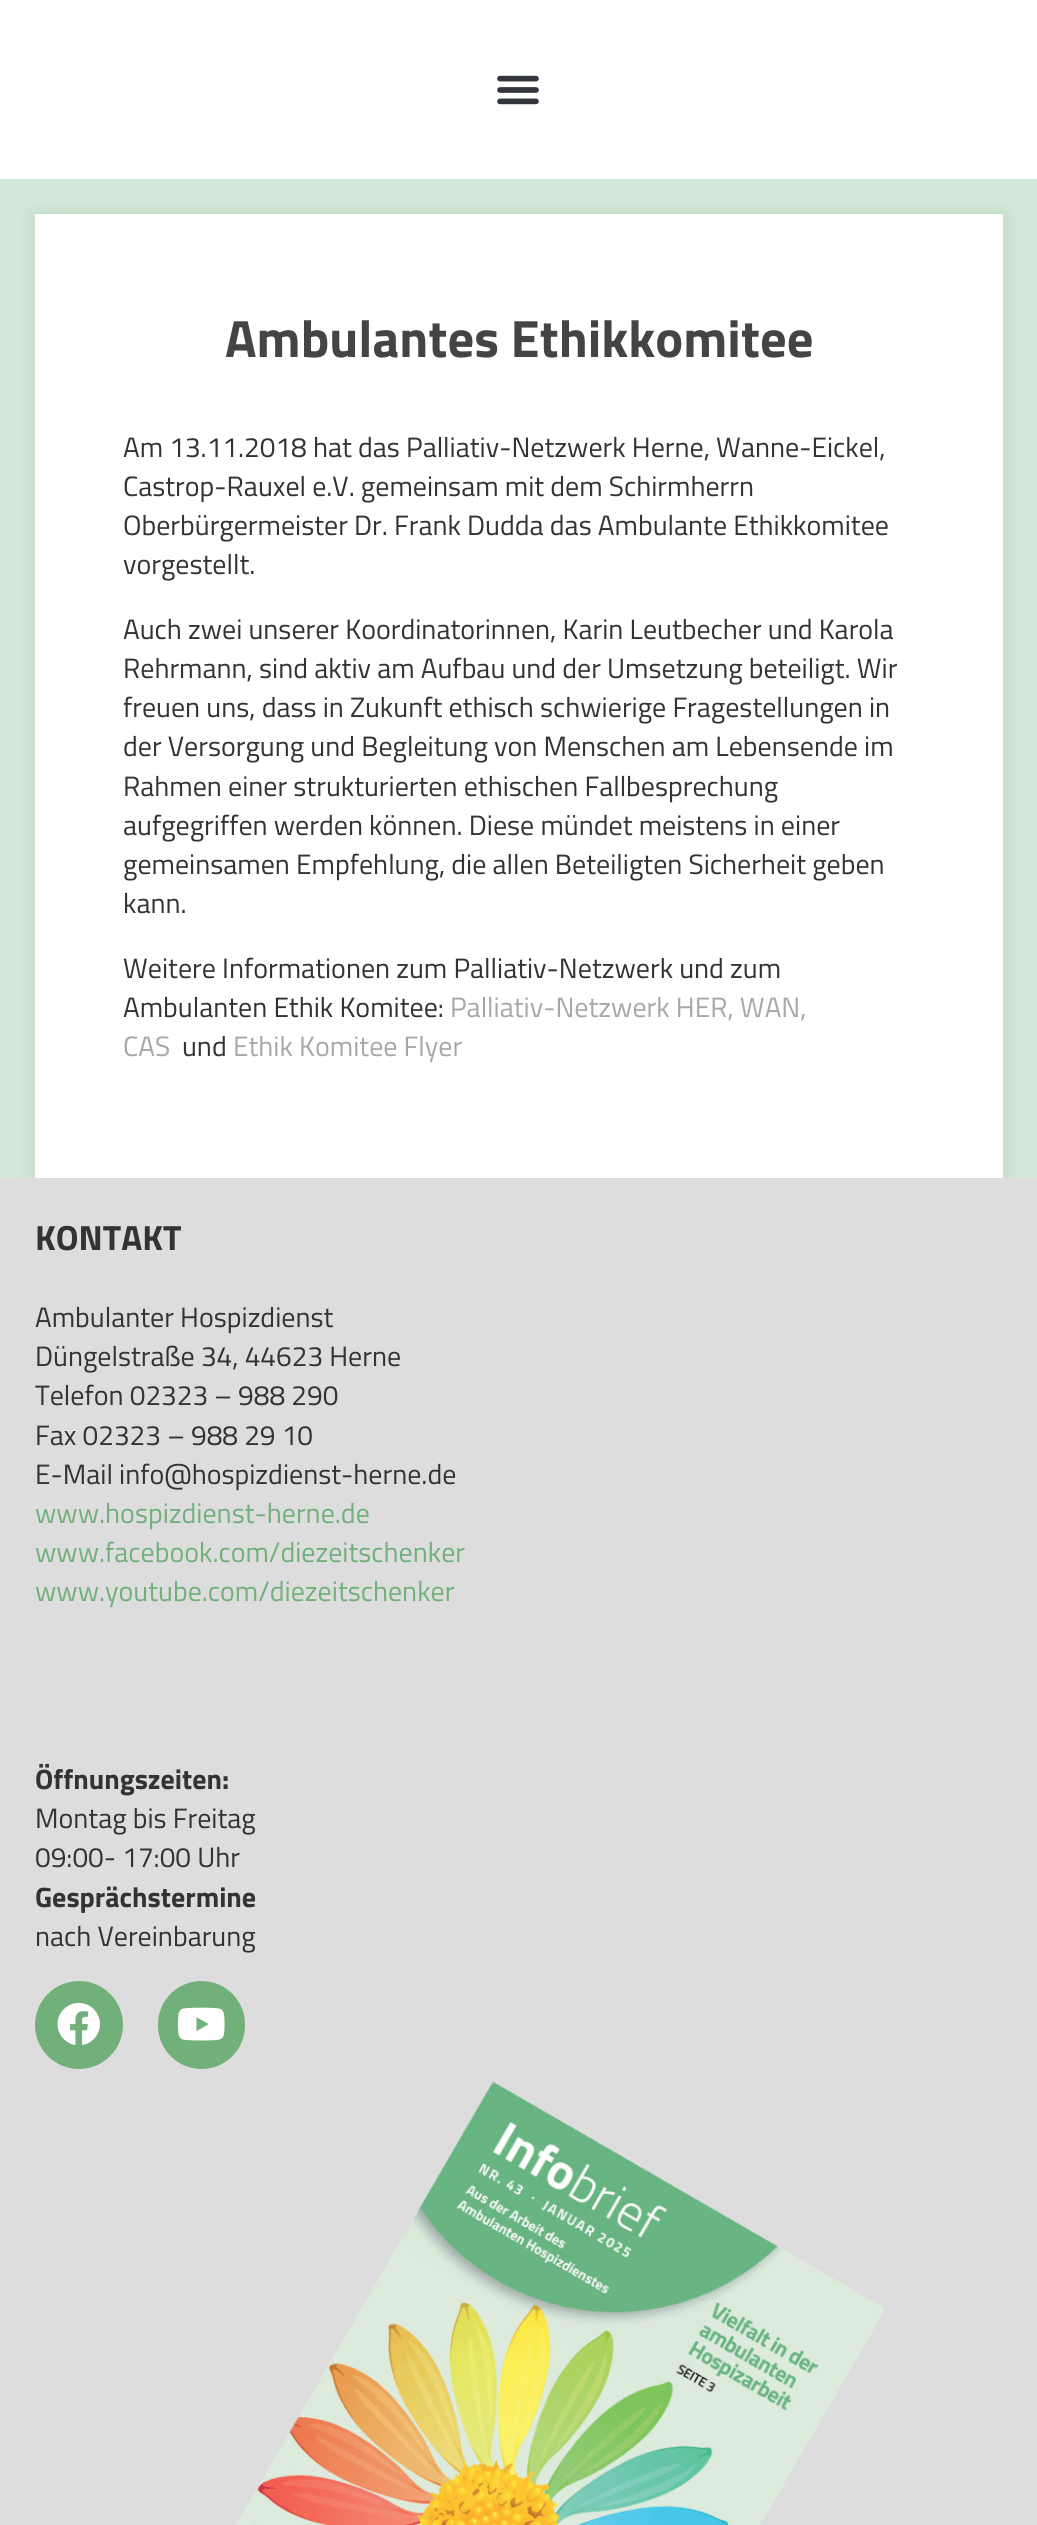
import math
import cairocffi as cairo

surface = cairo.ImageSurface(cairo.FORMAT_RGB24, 1037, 2525)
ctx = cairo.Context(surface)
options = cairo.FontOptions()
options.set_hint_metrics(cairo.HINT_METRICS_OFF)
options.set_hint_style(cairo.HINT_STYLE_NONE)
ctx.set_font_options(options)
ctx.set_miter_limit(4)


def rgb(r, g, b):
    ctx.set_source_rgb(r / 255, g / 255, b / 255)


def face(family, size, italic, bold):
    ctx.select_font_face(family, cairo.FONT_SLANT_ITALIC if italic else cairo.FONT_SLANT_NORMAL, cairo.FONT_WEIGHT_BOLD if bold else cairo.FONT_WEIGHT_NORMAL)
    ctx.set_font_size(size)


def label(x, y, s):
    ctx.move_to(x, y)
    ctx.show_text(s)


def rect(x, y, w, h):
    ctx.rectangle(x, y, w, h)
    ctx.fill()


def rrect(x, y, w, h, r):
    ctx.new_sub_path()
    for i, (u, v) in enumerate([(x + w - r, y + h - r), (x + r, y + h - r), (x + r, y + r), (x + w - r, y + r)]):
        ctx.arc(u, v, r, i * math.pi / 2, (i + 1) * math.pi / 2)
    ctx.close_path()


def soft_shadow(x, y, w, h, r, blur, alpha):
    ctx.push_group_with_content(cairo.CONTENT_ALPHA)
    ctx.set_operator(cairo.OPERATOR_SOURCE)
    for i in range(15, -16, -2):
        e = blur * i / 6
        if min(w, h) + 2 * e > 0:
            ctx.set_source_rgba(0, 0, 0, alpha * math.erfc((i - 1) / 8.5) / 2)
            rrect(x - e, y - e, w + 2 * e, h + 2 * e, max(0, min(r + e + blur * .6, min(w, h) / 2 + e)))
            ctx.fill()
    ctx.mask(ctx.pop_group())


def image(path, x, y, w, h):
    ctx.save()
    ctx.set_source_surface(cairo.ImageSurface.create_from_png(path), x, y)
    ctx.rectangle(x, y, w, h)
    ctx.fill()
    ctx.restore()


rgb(255, 255, 255)
ctx.paint()
image('image0.png', 497, 75, 42, 30)
rgb(209, 233, 214)
rect(0, 179, 1037, 999)
rgb(0, 0, 0)
soft_shadow(35, 214, 968, 964, 0, 9, 0.1)
rgb(255, 255, 255)
rect(35, 214, 968, 964)
face('Titillium Web', 52.5, 0, 1)
rgb(68, 68, 68)
label(225, 357, 'Ambulantes Ethikkomitee')
face('Titillium Web', 28, 0, 0)
rgb(51, 51, 51)
label(123, 457, 'Am 13.11.2018 hat das Palliativ-Netzwerk Herne, Wanne-Eickel,')
label(123, 496, 'Castrop-Rauxel e.V. gemeinsam mit dem Schirmherrn')
label(123, 535, 'Oberbürgermeister Dr. Frank Dudda das Ambulante Ethikkomitee')
label(123, 574, 'vorgestellt.')
label(123, 639, 'Auch zwei unserer Koordinatorinnen, Karin Leutbecher und Karola')
label(123, 678, 'Rehrmann, sind aktiv am Aufbau und der Umsetzung beteiligt. Wir')
label(123, 717, 'freuen uns, dass in Zukunft ethisch schwierige Fragestellungen in')
label(123, 756, 'der Versorgung und Begleitung von Menschen am Lebensende im')
label(123, 796, 'Rahmen einer strukturierten ethischen Fallbesprechung')
label(123, 835, 'aufgegriffen werden können. Diese mündet meistens in einer')
label(123, 874, 'gemeinsamen Empfehlung, die allen Beteiligten Sicherheit geben')
label(123, 913, 'kann.')
label(123, 978, 'Weitere Informationen zum Palliativ-Netzwerk und zum')
label(123, 1017, 'Ambulanten Ethik Komitee:')
rgb(167, 167, 167)
label(450, 1017, 'Palliativ-Netzwerk HER, WAN,')
label(123, 1056, 'CAS')
rgb(51, 51, 51)
label(182, 1056, 'und')
rgb(167, 167, 167)
label(233, 1056, 'Ethik Komitee Flyer')
rgb(221, 221, 221)
rect(0, 1178, 1037, 1347)
face('Titillium Web', 35, 0, 1)
rgb(51, 51, 51)
label(35, 1250, 'KONTAKT')
face('Titillium Web', 28, 0, 0)
label(35, 1327, 'Ambulanter Hospizdienst')
label(35, 1366, 'Düngelstraße 34, 44623 Herne')
label(35, 1405, 'Telefon 02323 – 988 290')
label(35, 1445, 'Fax 02323 – 988 29 10')
label(35, 1484, 'E-Mail info@hospizdienst-herne.de')
rgb(113, 176, 122)
label(35, 1523, 'www.hospizdienst-herne.de')
label(35, 1562, 'www.facebook.com/diezeitschenker')
label(35, 1601, 'www.youtube.com/diezeitschenker')
face('Titillium Web', 28, 0, 1)
rgb(51, 51, 51)
label(35, 1789, 'Öffnungszeiten:')
face('Titillium Web', 28, 0, 0)
label(35, 1828, 'Montag bis Freitag')
label(35, 1867, '09:00- 17:00 Uhr')
face('Titillium Web', 28, 0, 1)
label(35, 1907, 'Gesprächstermine')
face('Titillium Web', 28, 0, 0)
label(35, 1946, 'nach Vereinbarung')
rgb(113, 176, 122)
ctx.new_path()
ctx.arc(79, 2025, 44, 0, 2 * math.pi)
ctx.fill()
image('image1.png', 57, 2002, 43, 43)
rrect(158, 1981, 87, 88, 43.5)
ctx.fill()
image('image2.png', 177, 2007, 48, 34)
image('image3.png', 236, 2081, 649, 444)
surface.write_to_png('render.png')
